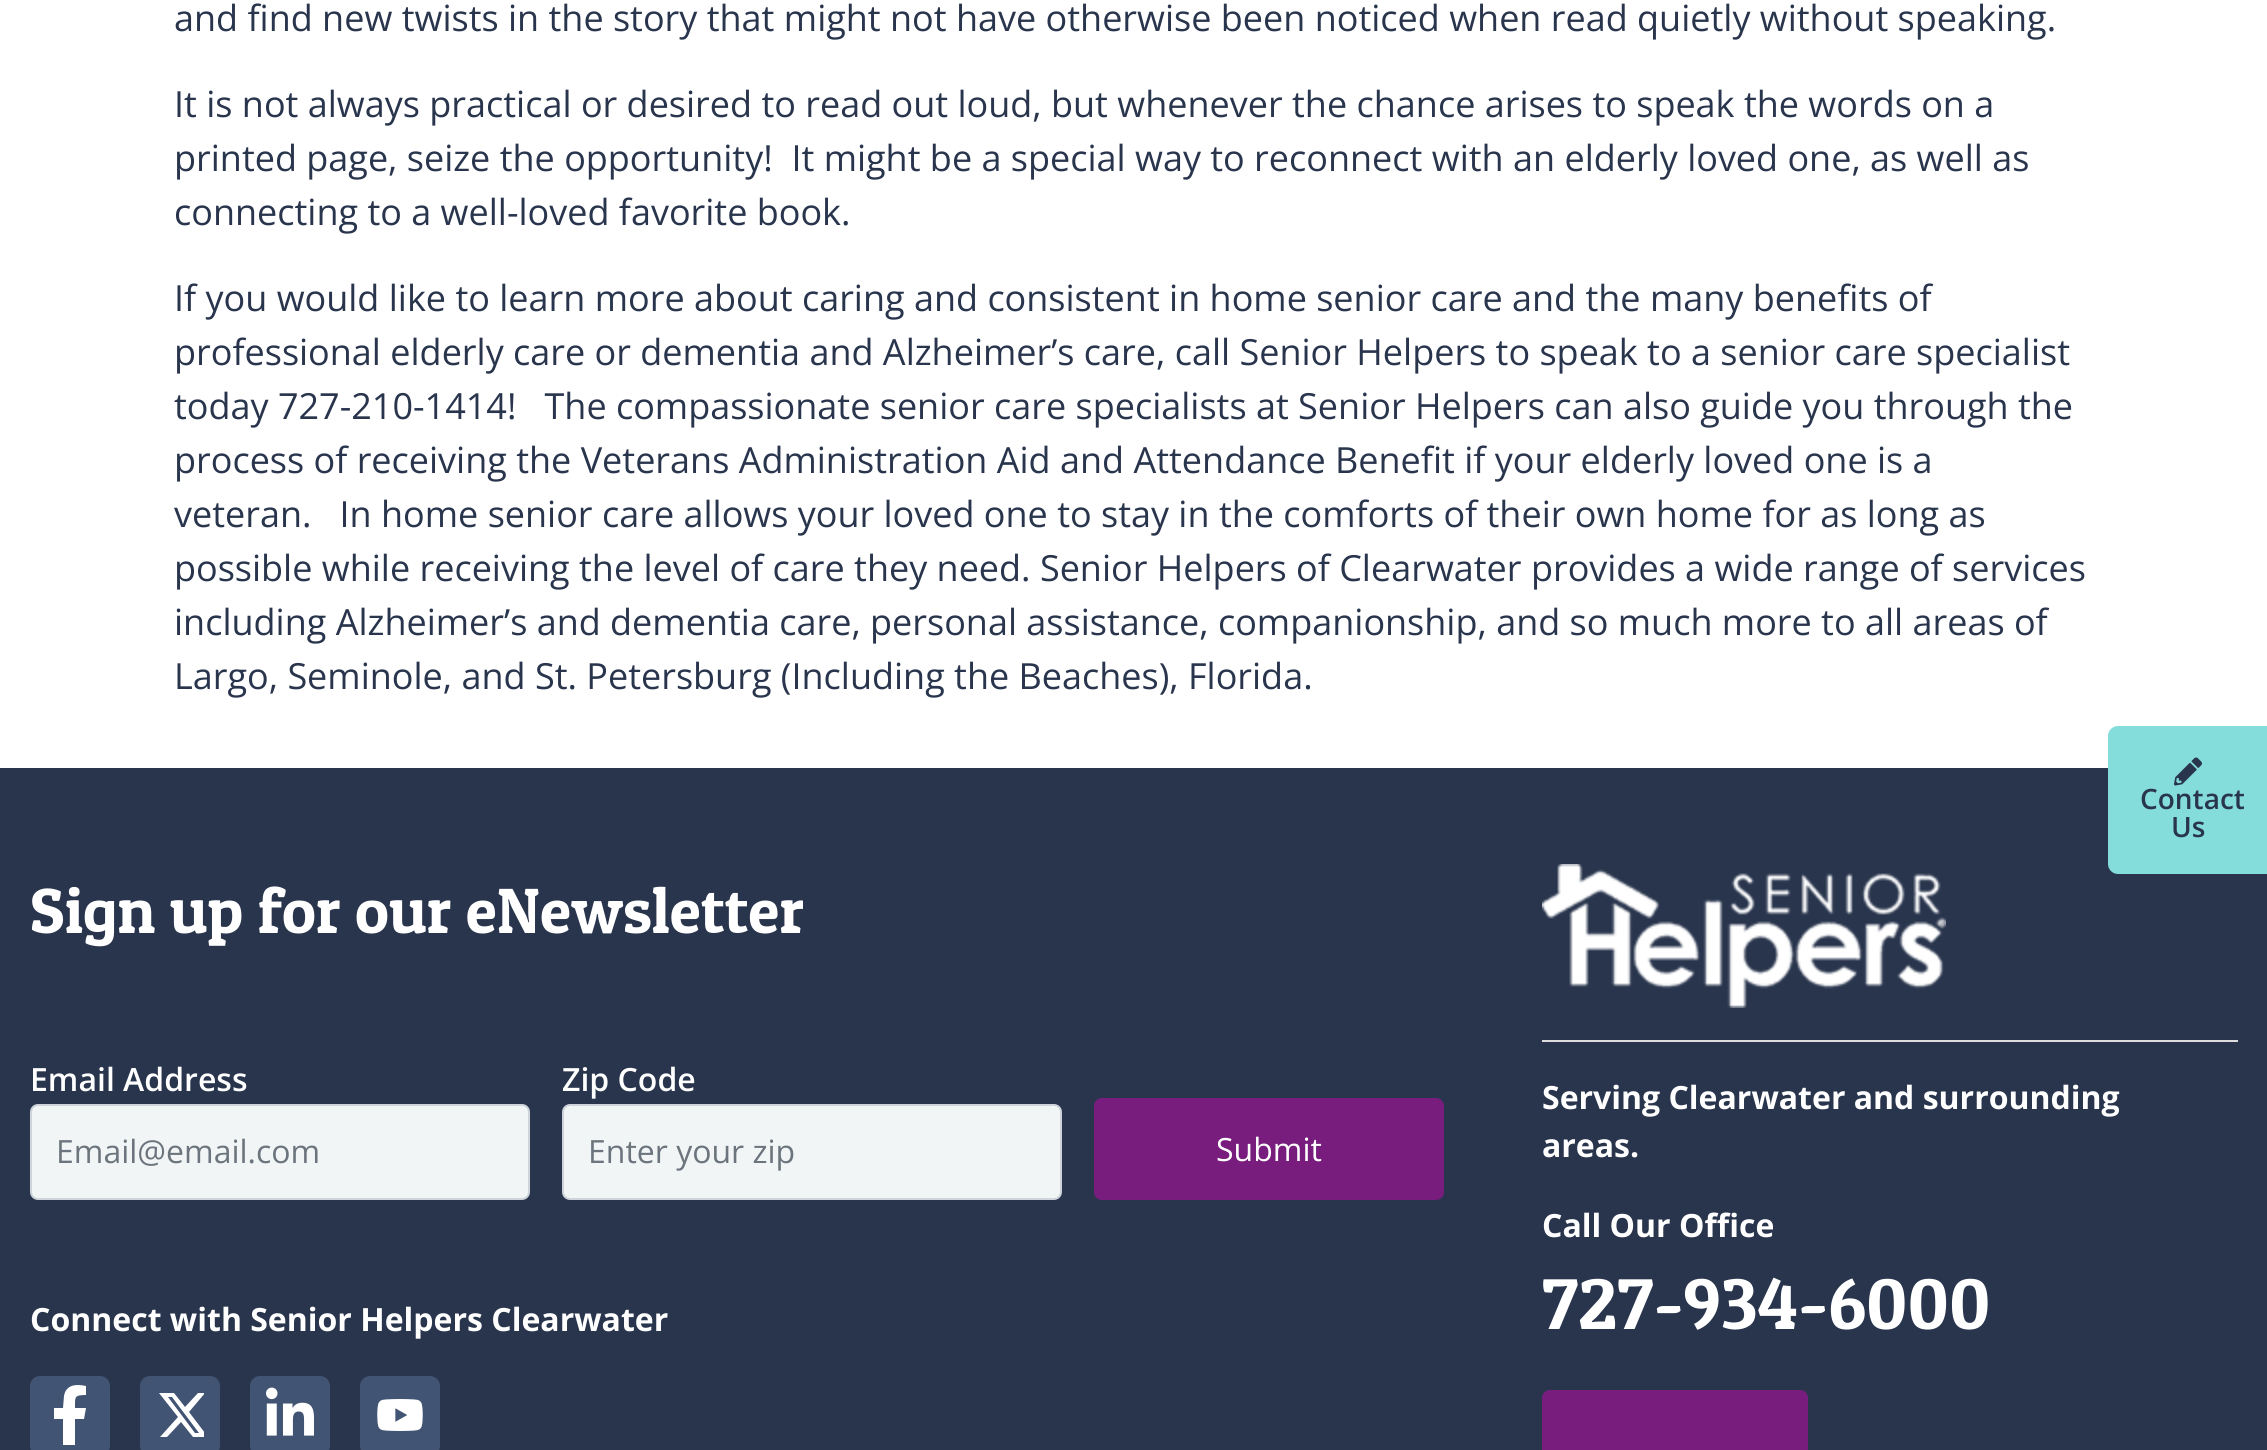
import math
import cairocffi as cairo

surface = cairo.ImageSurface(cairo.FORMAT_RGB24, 2267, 1450)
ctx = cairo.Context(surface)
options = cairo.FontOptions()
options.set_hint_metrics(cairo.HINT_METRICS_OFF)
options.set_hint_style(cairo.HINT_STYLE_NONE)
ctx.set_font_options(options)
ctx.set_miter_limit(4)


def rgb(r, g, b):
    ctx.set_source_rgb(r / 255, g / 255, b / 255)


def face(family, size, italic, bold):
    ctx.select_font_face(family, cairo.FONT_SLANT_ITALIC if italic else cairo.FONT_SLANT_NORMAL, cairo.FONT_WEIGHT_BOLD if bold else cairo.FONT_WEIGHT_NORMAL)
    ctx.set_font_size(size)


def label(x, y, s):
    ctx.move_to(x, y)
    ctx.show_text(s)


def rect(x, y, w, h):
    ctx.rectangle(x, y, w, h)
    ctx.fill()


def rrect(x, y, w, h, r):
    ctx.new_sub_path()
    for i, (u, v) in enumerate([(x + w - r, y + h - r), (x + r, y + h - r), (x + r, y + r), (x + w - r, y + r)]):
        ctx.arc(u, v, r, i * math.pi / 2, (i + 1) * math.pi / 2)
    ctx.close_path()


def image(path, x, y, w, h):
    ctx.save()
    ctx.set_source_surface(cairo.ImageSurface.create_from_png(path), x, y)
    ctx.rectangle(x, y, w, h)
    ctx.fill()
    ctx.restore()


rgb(255, 255, 255)
ctx.paint()
face('Open Sans', 36, 0, 0)
rgb(41, 53, 77)
label(174, 31, 'and find new twists in the story that might not have otherwise been noticed when read quietly without speaking.')
label(174, 117, 'It is not always practical or desired to read out loud, but whenever the chance arises to speak the words on a')
label(174, 171, 'printed page, seize the opportunity!  It might be a special way to reconnect with an elderly loved one, as well as')
label(174, 225, 'connecting to a well-loved favorite book.')
label(174, 311, 'If you would like to learn more about caring and consistent in home senior care and the many benefits of')
label(174, 365, 'professional elderly care or dementia and Alzheimer’s care, call Senior Helpers to speak to a senior care specialist')
label(174, 419, 'today 727-210-1414!   The compassionate senior care specialists at Senior Helpers can also guide you through the')
label(174, 473, 'process of receiving the Veterans Administration Aid and Attendance Benefit if your elderly loved one is a')
label(174, 527, 'veteran.   In home senior care allows your loved one to stay in the comforts of their own home for as long as')
label(174, 581, 'possible while receiving the level of care they need. Senior Helpers of Clearwater provides a wide range of services')
label(174, 635, 'including Alzheimer’s and dementia care, personal assistance, companionship, and so much more to all areas of')
label(174, 689, 'Largo, Seminole, and St. Petersburg (Including the Beaches), Florida.')
rect(0, 768, 2267, 682)
rgb(132, 221, 219)
ctx.new_path()
ctx.move_to(2118, 726)
ctx.line_to(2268, 726)
ctx.line_to(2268, 874)
ctx.line_to(2118, 874)
ctx.curve_to(2112.5, 874, 2108, 869.5, 2108, 864)
ctx.line_to(2108, 736)
ctx.curve_to(2108, 730.5, 2112.5, 726, 2118, 726)
ctx.close_path()
ctx.fill()
image('image0.png', 2174, 757, 28, 29)
face('Open Sans SemiBold', 28, 0, 0)
rgb(41, 53, 77)
label(2140, 809, 'Contact')
label(2171, 837, 'Us')
face('Patua One', 64, 0, 0)
rgb(255, 255, 255)
label(30, 933, 'Sign up for our eNewsletter')
face('Open Sans SemiBold', 32, 0, 0)
label(30, 1091, 'Email Address')
rgb(241, 245, 246)
rrect(31, 1105, 498, 94, 7)
ctx.fill_preserve()
rgb(206, 212, 218)
ctx.stroke()
face('Open Sans', 32, 0, 0)
rgb(108, 117, 125)
label(56, 1163, 'Email@email.com')
face('Open Sans SemiBold', 32, 0, 0)
rgb(255, 255, 255)
label(562, 1091, 'Zip Code')
rgb(241, 245, 246)
rrect(563, 1105, 498, 94, 7)
ctx.fill_preserve()
rgb(206, 212, 218)
ctx.stroke()
face('Open Sans', 32, 0, 0)
rgb(108, 117, 125)
label(588, 1163, 'Enter your zip')
rgb(120, 29, 126)
rrect(1096, 1100, 346, 98, 6)
ctx.fill_preserve()
ctx.set_line_width(4)
ctx.stroke()
rgb(255, 255, 255)
label(1216, 1161, 'Submit')
face('Open Sans', 32, 0, 1)
label(30, 1331, 'Connect with Senior Helpers Clearwater')
rgb(66, 84, 115)
rrect(30, 1376, 80, 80, 10)
ctx.fill()
rgb(255, 255, 255)
ctx.new_path()
ctx.move_to(84, 1419)
ctx.line_to(86, 1408)
ctx.line_to(75, 1408)
ctx.curve_to(75, 1397, 74, 1395, 86, 1395)
ctx.line_to(86, 1386)
ctx.curve_to(77, 1384, 66, 1384, 64, 1396)
ctx.line_to(63, 1408)
ctx.line_to(54, 1408)
ctx.line_to(54, 1419)
ctx.line_to(63, 1419)
ctx.line_to(63, 1445)
ctx.line_to(75, 1445)
ctx.line_to(75, 1419)
ctx.close_path()
ctx.fill()
rgb(66, 84, 115)
rrect(140, 1376, 80, 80, 10)
ctx.fill()
ctx.save()
ctx.rectangle(156, 1380, 48, 70)
ctx.clip()
rgb(255, 255, 255)
ctx.new_path()
ctx.move_to(198, 1393)
ctx.line_to(205, 1393)
ctx.line_to(189, 1412)
ctx.line_to(208, 1437)
ctx.line_to(193, 1437)
ctx.line_to(181, 1422)
ctx.line_to(167, 1437)
ctx.line_to(160, 1437)
ctx.line_to(178, 1417)
ctx.line_to(159, 1393)
ctx.line_to(174, 1393)
ctx.line_to(185, 1407)
ctx.close_path()
ctx.move_to(195, 1433)
ctx.line_to(199, 1433)
ctx.line_to(172, 1397)
ctx.line_to(168, 1397)
ctx.close_path()
ctx.fill()
ctx.restore()
rrect(250, 1376, 80, 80, 10)
ctx.fill()
image('image1.png', 266, 1387, 48, 49)
rrect(360, 1376, 80, 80, 10)
ctx.fill()
image('image2.png', 377, 1399, 46, 32)
rgb(221, 221, 221)
rect(1542, 1040, 696, 2)
image('image3.png', 1542, 864, 404, 144)
rgb(255, 255, 255)
label(1542, 1109, 'Serving Clearwater and surrounding')
label(1542, 1157, 'areas.')
label(1542, 1237, 'Call Our Office')
face('Patua One', 72, 0, 0)
label(1542, 1329, '727-934-6000')
rgb(120, 29, 126)
rrect(1544, 1392, 262, 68, 6)
ctx.fill_preserve()
ctx.stroke()
surface.write_to_png('render.png')
